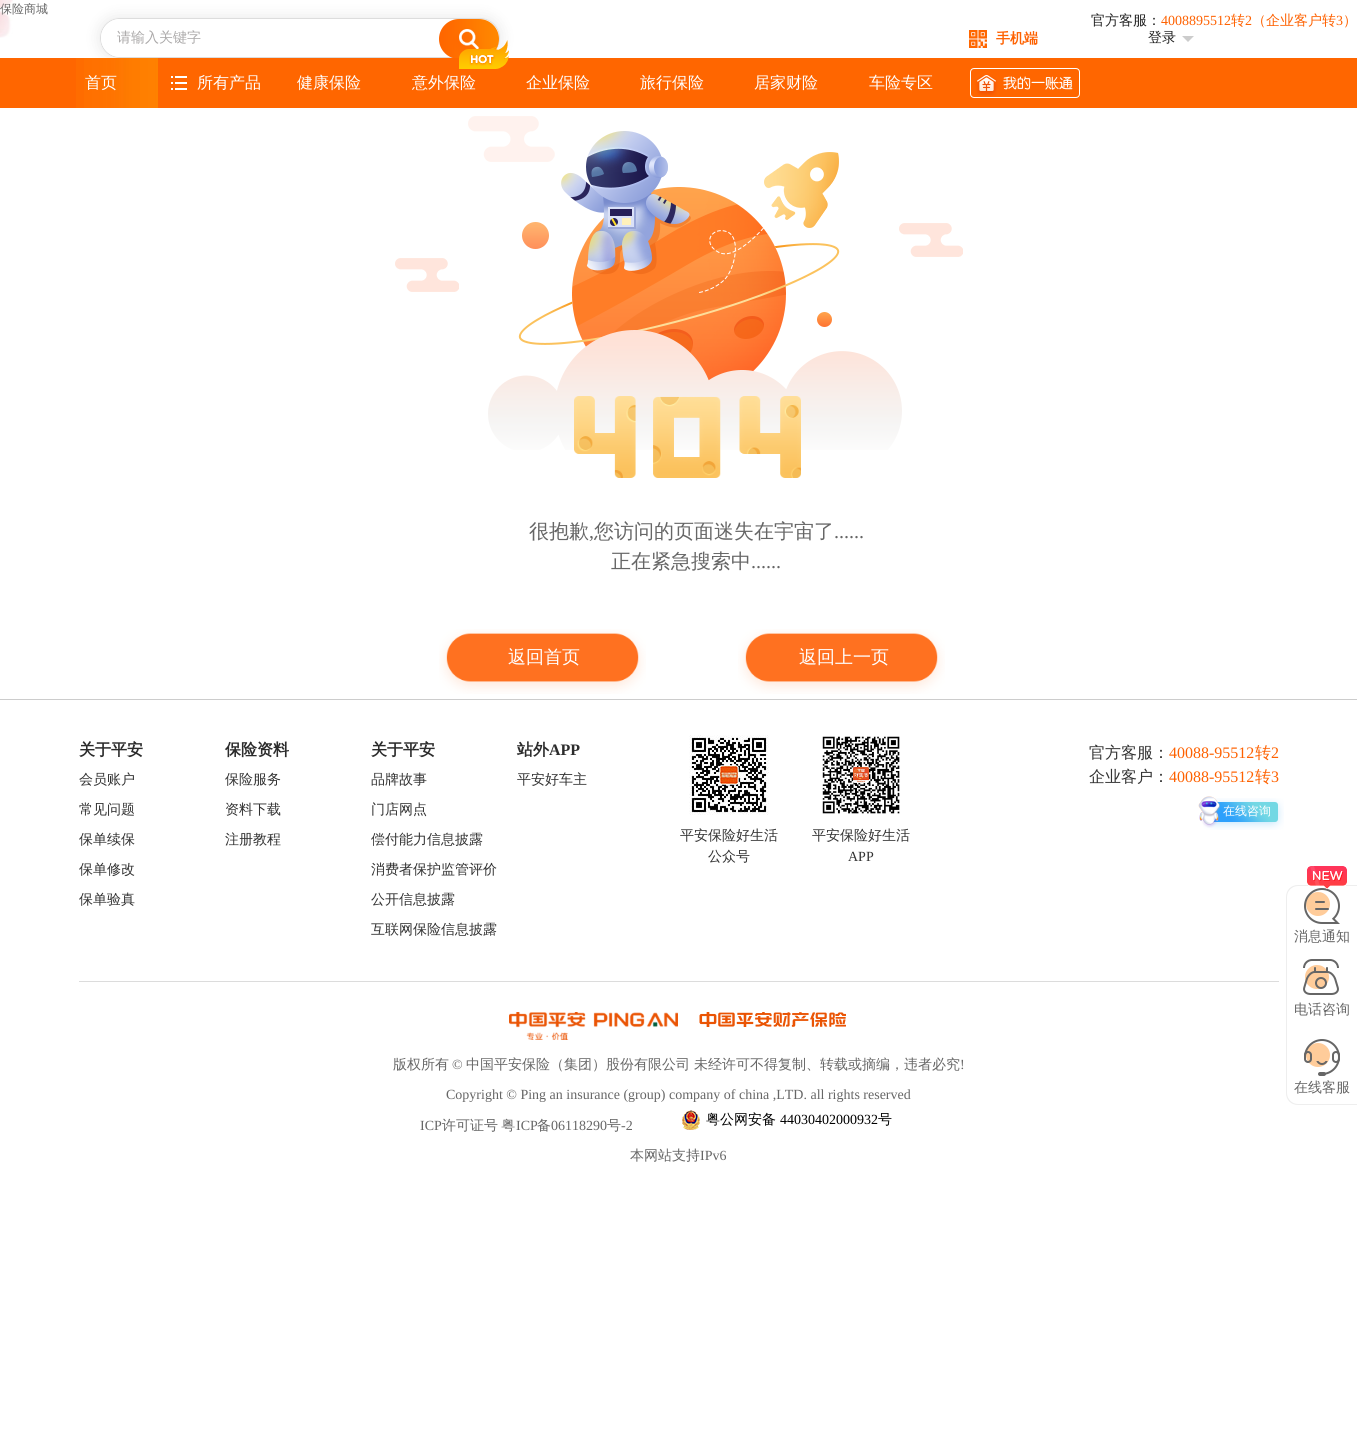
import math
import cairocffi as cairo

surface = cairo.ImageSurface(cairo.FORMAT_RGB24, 1357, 1450)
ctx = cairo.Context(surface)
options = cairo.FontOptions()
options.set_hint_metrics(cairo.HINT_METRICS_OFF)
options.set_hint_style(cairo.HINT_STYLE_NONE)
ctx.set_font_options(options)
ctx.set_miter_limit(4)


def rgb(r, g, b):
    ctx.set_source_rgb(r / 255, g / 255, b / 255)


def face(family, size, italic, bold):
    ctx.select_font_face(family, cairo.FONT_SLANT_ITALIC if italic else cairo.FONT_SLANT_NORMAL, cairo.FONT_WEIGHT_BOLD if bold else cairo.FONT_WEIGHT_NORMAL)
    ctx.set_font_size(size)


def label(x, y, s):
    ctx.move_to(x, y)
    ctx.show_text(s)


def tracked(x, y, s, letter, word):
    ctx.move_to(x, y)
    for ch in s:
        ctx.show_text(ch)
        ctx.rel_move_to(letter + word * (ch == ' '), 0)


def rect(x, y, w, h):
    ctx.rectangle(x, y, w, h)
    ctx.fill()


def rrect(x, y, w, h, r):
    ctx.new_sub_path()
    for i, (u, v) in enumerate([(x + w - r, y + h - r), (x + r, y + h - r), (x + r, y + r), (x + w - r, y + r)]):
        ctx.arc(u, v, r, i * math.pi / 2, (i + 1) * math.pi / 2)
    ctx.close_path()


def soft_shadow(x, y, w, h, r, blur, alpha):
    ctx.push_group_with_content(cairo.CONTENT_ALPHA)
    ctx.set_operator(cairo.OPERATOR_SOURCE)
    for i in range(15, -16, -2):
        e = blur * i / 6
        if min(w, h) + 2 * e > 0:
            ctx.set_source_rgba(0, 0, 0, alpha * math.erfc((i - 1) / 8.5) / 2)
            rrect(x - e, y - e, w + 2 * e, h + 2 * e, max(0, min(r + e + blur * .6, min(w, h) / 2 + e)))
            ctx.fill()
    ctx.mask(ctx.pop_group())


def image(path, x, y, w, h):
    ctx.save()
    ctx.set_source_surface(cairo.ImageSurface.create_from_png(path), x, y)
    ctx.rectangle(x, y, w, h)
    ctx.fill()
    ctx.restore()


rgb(255, 255, 255)
ctx.paint()
image('image0.png', 0, 0, 13, 38)
face('WenQuanYi Zen Hei Medium', 12, 0, 0)
rgb(102, 102, 102)
label(0, 13, '保险商城')
face('WenQuanYi Zen Hei Medium', 14, 0, 0)
rgb(34, 34, 34)
label(1091, 25, '官方客服：')
face('Liberation Serif', 14, 0, 0)
rgb(254, 97, 0)
label(1161, 25, '4008895512')
face('WenQuanYi Zen Hei Medium', 14, 0, 0)
label(1231, 25, '转')
face('Liberation Serif', 14, 0, 0)
label(1245, 25, '2')
face('WenQuanYi Zen Hei Medium', 14, 0, 0)
label(1252, 25, '（企业客户转')
face('Liberation Serif', 14, 0, 0)
label(1336, 25, '3')
face('WenQuanYi Zen Hei Medium', 14, 0, 0)
label(1343, 25, '）')
ctx.save()
ctx.set_fill_rule(cairo.FILL_RULE_EVEN_ODD)
ctx.new_path()
ctx.move_to(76, 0)
ctx.line_to(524, 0)
ctx.line_to(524, 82)
ctx.line_to(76, 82)
ctx.close_path()
ctx.move_to(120, 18)
ctx.line_to(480, 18)
ctx.curve_to(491, 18, 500, 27, 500, 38)
ctx.curve_to(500, 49, 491, 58, 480, 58)
ctx.line_to(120, 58)
ctx.curve_to(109, 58, 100, 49, 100, 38)
ctx.curve_to(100, 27, 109, 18, 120, 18)
ctx.close_path()
ctx.clip()
rgb(0, 0, 0)
soft_shadow(100, 18, 400, 40, 20, 7.5, 0.1)
ctx.restore()
rrect(100.5, 18.5, 399, 39, 19.5)
rgb(221, 221, 221)
ctx.set_line_width(1)
ctx.stroke()
rgb(255, 255, 255)
ctx.new_path()
ctx.move_to(120, 19)
ctx.line_to(437, 19)
ctx.line_to(437, 57)
ctx.line_to(120, 57)
ctx.curve_to(109.5, 57, 101, 48.5, 101, 38)
ctx.curve_to(101, 27.5, 109.5, 19, 120, 19)
ctx.close_path()
ctx.fill()
rgb(171, 169, 169)
label(117, 42, '请输入关键字')
image('image1.png', 439, 19, 60, 39)
image('image2.png', 969, 30, 18, 18)
face('WenQuanYi Zen Hei', 14, 0, 1)
rgb(254, 97, 0)
label(996, 43, '手机端')
face('WenQuanYi Zen Hei Medium', 14, 0, 0)
rgb(34, 34, 34)
label(1148, 42, '登录')
rgb(204, 204, 204)
ctx.new_path()
ctx.move_to(1182, 36)
ctx.line_to(1194, 36)
ctx.line_to(1188, 42)
ctx.close_path()
ctx.fill()
rgb(255, 102, 0)
rect(0, 58, 1357, 50)
image('image3.png', 459, 40, 50, 29)
image('image4.png', 76, 58, 82, 50)
face('WenQuanYi Zen Hei Medium', 16, 0, 0)
rgb(255, 255, 255)
label(85, 88, '首页')
image('image5.png', 171, 76, 16, 14)
label(197, 88, '所有产品')
label(297, 88, '健康保险')
label(412, 88, '意外保险')
label(526, 88, '企业保险')
label(640, 88, '旅行保险')
label(754, 88, '居家财险')
label(869, 88, '车险专区')
image('image6.png', 970, 68, 110, 30)
image('image7.png', 395, 116, 568, 334)
image('image8.png', 574, 396, 227, 82)
face('WenQuanYi Zen Hei Medium', 20, 0, 0)
rgb(102, 102, 102)
label(529, 538, '很抱歉')
face('Liberation Serif', 20, 0, 0)
label(589, 538, ',')
face('WenQuanYi Zen Hei Medium', 20, 0, 0)
label(594, 538, '您访问的页面迷失在宇宙了')
face('Liberation Serif', 20, 0, 0)
label(834, 538, '......')
face('WenQuanYi Zen Hei Medium', 20, 0, 0)
label(611, 568, '正在紧急搜索中')
face('Liberation Serif', 20, 0, 0)
label(751, 568, '......')
image('image9.png', 439, 629, 207, 65)
face('WenQuanYi Zen Hei Medium', 18, 0, 0)
rgb(255, 255, 255)
label(508, 663, '返回首页')
image('image9.png', 738, 629, 207, 65)
label(799, 663, '返回上一页')
rgb(204, 204, 204)
rect(0, 699, 1357, 1)
rgb(220, 220, 220)
rect(79, 981, 1200, 1)
face('WenQuanYi Zen Hei', 16, 0, 1)
rgb(44, 44, 44)
label(79, 755, '关于平安')
face('WenQuanYi Zen Hei Medium', 14, 0, 0)
rgb(50, 50, 50)
label(79, 784, '会员账户')
label(79, 814, '常见问题')
label(79, 844, '保单续保')
label(79, 874, '保单修改')
label(79, 904, '保单验真')
face('WenQuanYi Zen Hei', 16, 0, 1)
rgb(44, 44, 44)
label(225, 755, '保险资料')
face('WenQuanYi Zen Hei Medium', 14, 0, 0)
rgb(50, 50, 50)
label(225, 784, '保险服务')
label(225, 814, '资料下载')
label(225, 844, '注册教程')
face('WenQuanYi Zen Hei', 16, 0, 1)
rgb(44, 44, 44)
label(371, 755, '关于平安')
face('WenQuanYi Zen Hei Medium', 14, 0, 0)
rgb(50, 50, 50)
label(371, 784, '品牌故事')
label(371, 814, '门店网点')
label(371, 844, '偿付能力信息披露')
label(371, 874, '消费者保护监管评价')
label(371, 904, '公开信息披露')
label(371, 934, '互联网保险信息披露')
face('WenQuanYi Zen Hei', 16, 0, 1)
rgb(44, 44, 44)
label(517, 755, '站外')
face('Liberation Serif', 16, 0, 1)
label(549, 755, 'APP')
face('WenQuanYi Zen Hei Medium', 14, 0, 0)
rgb(50, 50, 50)
label(517, 784, '平安好车主')
face('WenQuanYi Zen Hei Medium', 16, 0, 0)
label(1089, 758, '官方客服：')
face('Liberation Serif', 16, 0, 0)
rgb(254, 97, 0)
label(1169, 758, '40088-95512')
face('WenQuanYi Zen Hei Medium', 16, 0, 0)
label(1255, 758, '转')
face('Liberation Serif', 16, 0, 0)
label(1271, 758, '2')
face('WenQuanYi Zen Hei Medium', 16, 0, 0)
rgb(50, 50, 50)
label(1089, 782, '企业客户：')
face('Liberation Serif', 16, 0, 0)
rgb(254, 97, 0)
label(1169, 782, '40088-95512')
face('WenQuanYi Zen Hei Medium', 16, 0, 0)
label(1255, 782, '转')
face('Liberation Serif', 16, 0, 0)
label(1271, 782, '3')
image('image10.png', 1203, 798, 81, 32)
image('image11.png', 1198, 796, 22, 32)
face('WenQuanYi Zen Hei Medium', 12, 0, 0)
rgb(255, 255, 255)
label(1223, 815, '在线咨询')
image('image12.png', 689, 735, 80, 80)
face('WenQuanYi Zen Hei Medium', 14, 0, 0)
rgb(50, 50, 50)
label(680, 840, '平安保险好生活')
label(708, 861, '公众号')
image('image13.png', 822, 736, 78, 78)
label(812, 840, '平安保险好生活')
face('Liberation Serif', 14, 0, 0)
label(848, 861, 'APP')
image('image14.png', 509, 1012, 169, 28)
image('image15.png', 699, 1012, 147, 15)
face('WenQuanYi Zen Hei Medium', 14, 0, 0)
rgb(102, 102, 102)
label(393, 1069, '版权所有')
face('Liberation Serif', 14, 0, 0)
label(452, 1069, '©')
face('WenQuanYi Zen Hei Medium', 14, 0, 0)
label(466, 1069, '中国平安保险（集团）股份有限公司')
label(694, 1069, '未经许可不得复制、转载或摘编，违者必究')
face('Liberation Serif', 14, 0, 0)
label(960, 1069, '!')
label(446, 1099, 'Copyright © Ping an insurance (group) company of china ,LTD. all rights reserved')
label(420, 1130, 'ICP')
face('WenQuanYi Zen Hei Medium', 14, 0, 0)
tracked(442, 1130, '许可证号 粤', 0, -1)
face('Liberation Serif', 14, 0, 0)
label(516, 1130, 'ICP')
face('WenQuanYi Zen Hei Medium', 14, 0, 0)
label(537, 1130, '备')
face('Liberation Serif', 14, 0, 0)
label(551, 1130, '06118290')
face('WenQuanYi Zen Hei Medium', 14, 0, 0)
label(607, 1130, '号')
face('Liberation Serif', 14, 0, 0)
label(621, 1130, '-2')
image('image16.png', 682, 1110, 18, 20)
face('WenQuanYi Zen Hei Medium', 14, 0, 0)
rgb(0, 0, 0)
label(706, 1124, '粤公网安备')
face('Liberation Serif', 14, 0, 0)
label(780, 1124, '44030402000932')
face('WenQuanYi Zen Hei Medium', 14, 0, 0)
label(878, 1124, '号')
rgb(102, 102, 102)
label(630, 1160, '本网站支持')
face('Liberation Serif', 14, 0, 0)
label(700, 1160, 'IPv6')
rgb(238, 238, 238)
ctx.set_fill_rule(cairo.FILL_RULE_EVEN_ODD)
ctx.new_path()
ctx.move_to(1298, 885)
ctx.line_to(1357, 885)
ctx.line_to(1357, 1105)
ctx.line_to(1298, 1105)
ctx.curve_to(1291, 1105, 1286, 1100, 1286, 1093)
ctx.line_to(1286, 897)
ctx.curve_to(1286, 890, 1291, 885, 1298, 885)
ctx.close_path()
ctx.move_to(1298, 886)
ctx.line_to(1357, 886)
ctx.line_to(1357, 1104)
ctx.line_to(1298, 1104)
ctx.curve_to(1292, 1104, 1287, 1099, 1287, 1093)
ctx.line_to(1287, 897)
ctx.curve_to(1287, 891, 1292, 886, 1298, 886)
ctx.close_path()
ctx.fill()
image('image18.png', 1304, 888, 36, 36)
image('image17.png', 1307, 866, 40, 23)
face('WenQuanYi Zen Hei Medium', 14, 0, 0)
rgb(102, 102, 102)
label(1294, 941, '消息通知')
image('image19.png', 1303, 959, 36, 36)
label(1294, 1014, '电话咨询')
image('image20.png', 1304, 1039, 36, 37)
label(1294, 1092, '在线客服')
surface.write_to_png('render.png')
